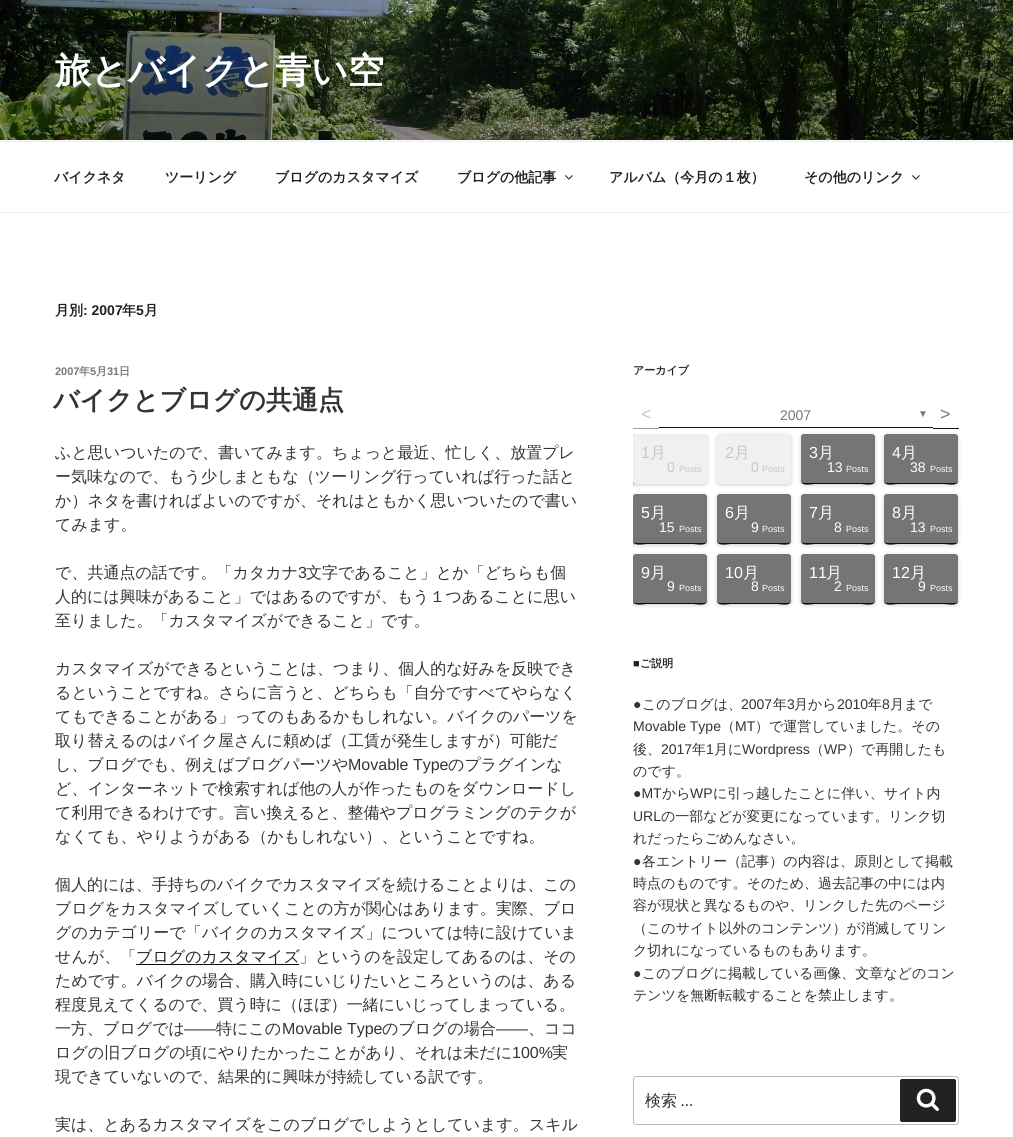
import math
import cairocffi as cairo

surface = cairo.ImageSurface(cairo.FORMAT_RGB24, 1013, 1137)
ctx = cairo.Context(surface)
options = cairo.FontOptions()
options.set_hint_metrics(cairo.HINT_METRICS_OFF)
options.set_hint_style(cairo.HINT_STYLE_NONE)
ctx.set_font_options(options)
ctx.set_miter_limit(4)


def rgb(r, g, b):
    ctx.set_source_rgb(r / 255, g / 255, b / 255)


def face(family, size, italic, bold):
    ctx.select_font_face(family, cairo.FONT_SLANT_ITALIC if italic else cairo.FONT_SLANT_NORMAL, cairo.FONT_WEIGHT_BOLD if bold else cairo.FONT_WEIGHT_NORMAL)
    ctx.set_font_size(size)


def label(x, y, s):
    ctx.move_to(x, y)
    ctx.show_text(s)


def rect(x, y, w, h):
    ctx.rectangle(x, y, w, h)
    ctx.fill()


def rrect(x, y, w, h, r):
    ctx.new_sub_path()
    for i, (u, v) in enumerate([(x + w - r, y + h - r), (x + r, y + h - r), (x + r, y + r), (x + w - r, y + r)]):
        ctx.arc(u, v, r, i * math.pi / 2, (i + 1) * math.pi / 2)
    ctx.close_path()


def soft_shadow(x, y, w, h, r, blur, alpha):
    ctx.push_group_with_content(cairo.CONTENT_ALPHA)
    ctx.set_operator(cairo.OPERATOR_SOURCE)
    for i in range(15, -16, -2):
        e = blur * i / 6
        if min(w, h) + 2 * e > 0:
            ctx.set_source_rgba(0, 0, 0, alpha * math.erfc((i - 1) / 8.5) / 2)
            rrect(x - e, y - e, w + 2 * e, h + 2 * e, max(0, min(r + e + blur * .6, min(w, h) / 2 + e)))
            ctx.fill()
    ctx.mask(ctx.pop_group())


def image(path, x, y, w, h):
    ctx.save()
    ctx.set_source_surface(cairo.ImageSurface.create_from_png(path), x, y)
    ctx.rectangle(x, y, w, h)
    ctx.fill()
    ctx.restore()


rgb(255, 255, 255)
ctx.paint()
rgb(250, 250, 250)
rect(0, 140, 1013, 1)
image('image0.png', 0, 0, 1013, 140)
face('WenQuanYi Zen Hei', 36, 0, 1)
rgb(255, 255, 255)
label(55, 83, '旅とバイクと青い空')
rgb(238, 238, 238)
rect(0, 141, 1013, 1)
rect(0, 212, 1013, 1)
face('WenQuanYi Zen Hei', 14, 0, 1)
rgb(34, 34, 34)
label(54, 182, 'バイクネタ')
label(165, 182, 'ツーリング')
label(275, 182, 'ブログのカスタマイズ')
label(457, 182, 'ブログの他記事')
image('image1.png', 565, 175, 8, 5)
label(609, 182, 'アルバム（今月の１枚）')
label(804, 182, 'その他のリンク')
image('image1.png', 912, 175, 8, 5)
label(55, 315, '月別')
face('Liberation Sans', 14, 0, 1)
label(83, 315, ': 2007')
face('WenQuanYi Zen Hei', 14, 0, 1)
label(122, 315, '年')
face('Liberation Sans', 14, 0, 1)
label(136, 315, '5')
face('WenQuanYi Zen Hei', 14, 0, 1)
label(144, 315, '月')
face('Liberation Sans', 11, 0, 1)
rgb(118, 118, 118)
label(55, 375, '2007')
face('WenQuanYi Zen Hei', 11, 0, 1)
label(79, 375, '年')
face('Liberation Sans', 11, 0, 1)
label(90, 375, '5')
face('WenQuanYi Zen Hei', 11, 0, 1)
label(96, 375, '月')
face('Liberation Sans', 11, 0, 1)
label(107, 375, '31')
face('WenQuanYi Zen Hei', 11, 0, 1)
label(119, 375, '日')
face('WenQuanYi Zen Hei', 26, 0, 1)
rgb(51, 51, 51)
label(53, 409, 'バイクとブログの共通点')
face('WenQuanYi Zen Hei Medium', 16, 0, 0)
label(55, 458, 'ふと思いついたので、書いてみます。ちょっと最近、忙しく、放置プレ')
label(55, 482, 'ー気味なので、もう少しまともな（ツーリング行っていれば行った話と')
label(55, 506, 'か）ネタを書ければよいのですが、それはともかく思いついたので書い')
label(55, 530, 'てみます。')
label(55, 578, 'で、共通点の話です。「カタカナ')
face('Liberation Sans', 16, 0, 0)
label(298, 578, '3')
face('WenQuanYi Zen Hei Medium', 16, 0, 0)
label(306, 578, '文字であること」とか「どちらも個')
label(55, 602, '人的には興味があること」ではあるのですが、もう１つあることに思い')
label(55, 626, '至りました。「カスタマイズができること」です。')
label(55, 674, 'カスタマイズができるということは、つまり、個人的な好みを反映でき')
label(55, 698, 'るということですね。さらに言うと、どちらも「自分ですべてやらなく')
label(55, 722, 'てもできることがある」ってのもあるかもしれない。バイクのパーツを')
label(55, 746, '取り替えるのはバイク屋さんに頼めば（工賃が発生しますが）可能だ')
label(55, 770, 'し、ブログでも、例えばブログパーツや')
face('Liberation Sans', 16, 0, 0)
label(348, 770, 'Movable Type')
face('WenQuanYi Zen Hei Medium', 16, 0, 0)
label(448, 770, 'のプラグインな')
label(55, 794, 'ど、インターネットで検索すれば他の人が作ったものをダウンロードし')
label(55, 818, 'て利用できるわけです。言い換えると、整備やプログラミングのテクが')
label(55, 842, 'なくても、やりようがある（かもしれない）、ということですね。')
label(55, 890, '個人的には、手持ちのバイクでカスタマイズを続けることよりは、この')
label(55, 914, 'ブログをカスタマイズしていくことの方が関心はあります。実際、ブロ')
label(55, 938, 'グのカテゴリーで「バイクのカスタマイズ」については特に設けていま')
label(55, 962, 'せんが、「')
rgb(15, 15, 15)
rect(136, 964, 163, 1)
rgb(34, 34, 34)
label(136, 962, 'ブログのカスタマイズ')
rgb(51, 51, 51)
label(299, 962, '」というのを設定してあるのは、その')
label(55, 986, 'ためです。バイクの場合、購入時にいじりたいところというのは、ある')
label(55, 1010, '程度見えてくるので、買う時に（ほぼ）一緒にいじってしまっている。')
label(55, 1034, '一方、ブログでは')
face('Liberation Sans', 16, 0, 0)
label(184, 1034, '――')
face('WenQuanYi Zen Hei Medium', 16, 0, 0)
label(216, 1034, '特にこの')
face('Liberation Sans', 16, 0, 0)
label(282, 1034, 'Movable Type')
face('WenQuanYi Zen Hei Medium', 16, 0, 0)
label(382, 1034, 'のブログの場合')
face('Liberation Sans', 16, 0, 0)
label(496, 1034, '――')
face('WenQuanYi Zen Hei Medium', 16, 0, 0)
label(528, 1034, '、ココ')
label(55, 1058, 'ログの旧ブログの頃にやりたかったことがあり、それは未だに')
face('Liberation Sans', 16, 0, 0)
label(512, 1058, '100%')
face('WenQuanYi Zen Hei Medium', 16, 0, 0)
label(552, 1058, '実')
label(55, 1082, '現できていないので、結果的に興味が持続している訳です。')
label(55, 1130, '実は、とあるカスタマイズをこのブログでしようとしています。スキル')
face('WenQuanYi Zen Hei', 11, 0, 1)
rgb(34, 34, 34)
label(633, 374, 'アーカイブ')
rgb(159, 159, 159)
rect(633, 428, 26, 1)
face('Liberation Sans', 18, 0, 0)
rgb(200, 200, 200)
label(641, 420, '<')
rgb(15, 15, 15)
rect(659, 427, 274, 1)
face('Liberation Sans', 14, 0, 0)
rgb(118, 118, 118)
label(780, 420, '2007')
face('Liberation Sans', 10, 0, 0)
label(918, 417, '▼')
rgb(15, 15, 15)
rect(933, 428, 26, 1)
face('Liberation Sans', 18, 0, 0)
rgb(118, 118, 118)
label(940, 420, '>')
ctx.save()
ctx.rectangle(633, 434, 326, 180)
ctx.clip()
rgb(0, 0, 0)
soft_shadow(559, 435, 74, 50, 3, 2, 0.2)
soft_shadow(559, 495, 74, 50, 3, 2, 0.2)
soft_shadow(559, 555, 74, 50, 3, 2, 0.2)
soft_shadow(559, 435, 74, 50, 3, 2, 0.2)
soft_shadow(559, 495, 74, 50, 3, 2, 0.2)
soft_shadow(559, 555, 74, 50, 3, 2, 0.2)
soft_shadow(559, 435, 74, 50, 3, 2, 0.2)
soft_shadow(559, 495, 74, 50, 3, 2, 0.2)
soft_shadow(559, 555, 74, 50, 3, 2, 0.2)
soft_shadow(559, 435, 74, 50, 3, 2, 0.2)
soft_shadow(559, 495, 74, 50, 3, 2, 0.2)
soft_shadow(559, 555, 74, 50, 3, 2, 0.2)
soft_shadow(633, 435, 74, 50, 3, 2, 0.2)
ctx.restore()
rgb(240, 240, 240)
rrect(633, 434, 74, 50, 3)
ctx.fill()
face('Liberation Sans', 16, 0, 0)
rgb(200, 200, 200)
label(641, 458, '1')
face('WenQuanYi Zen Hei Medium', 16, 0, 0)
label(650, 458, '月')
face('Liberation Sans', 14, 0, 0)
label(667, 472, '0')
face('Liberation Sans', 9, 0, 0)
label(679, 472, 'Posts')
rgb(0, 0, 0)
soft_shadow(717, 435, 74, 50, 3, 2, 0.2)
rgb(240, 240, 240)
rrect(717, 434, 74, 50, 3)
ctx.fill()
face('Liberation Sans', 16, 0, 0)
rgb(200, 200, 200)
label(725, 458, '2')
face('WenQuanYi Zen Hei Medium', 16, 0, 0)
label(734, 458, '月')
face('Liberation Sans', 14, 0, 0)
label(751, 472, '0')
face('Liberation Sans', 9, 0, 0)
label(762, 472, 'Posts')
rgb(0, 0, 0)
soft_shadow(801, 435, 74, 50, 3, 2, 0.2)
rgb(117, 117, 117)
rrect(801, 434, 74, 50, 3)
ctx.fill()
rgb(15, 15, 15)
ctx.new_path()
ctx.move_to(801, 480)
ctx.curve_to(801, 487, 811, 484, 815, 484)
ctx.line_to(861, 484)
ctx.curve_to(865, 484, 875, 487, 875, 480)
ctx.curve_to(875, 482, 874, 483, 872, 483)
ctx.line_to(804, 483)
ctx.curve_to(802, 483, 801, 482, 801, 480)
ctx.close_path()
ctx.fill()
face('Liberation Sans', 16, 0, 0)
rgb(255, 255, 255)
label(809, 458, '3')
face('WenQuanYi Zen Hei Medium', 16, 0, 0)
label(818, 458, '月')
face('Liberation Sans', 14, 0, 0)
label(827, 472, '13')
face('Liberation Sans', 9, 0, 0)
label(846, 472, 'Posts')
rgb(0, 0, 0)
soft_shadow(884, 435, 74, 50, 3, 2, 0.2)
rgb(117, 117, 117)
rrect(884, 434, 74, 50, 3)
ctx.fill()
rgb(15, 15, 15)
ctx.new_path()
ctx.move_to(884, 480)
ctx.curve_to(884, 487, 894, 484, 898, 484)
ctx.line_to(944, 484)
ctx.curve_to(948, 484, 958, 487, 958, 480)
ctx.curve_to(958, 482, 957, 483, 955, 483)
ctx.line_to(887, 483)
ctx.curve_to(885, 483, 884, 482, 884, 480)
ctx.close_path()
ctx.fill()
face('Liberation Sans', 16, 0, 0)
rgb(255, 255, 255)
label(892, 458, '4')
face('WenQuanYi Zen Hei Medium', 16, 0, 0)
label(901, 458, '月')
face('Liberation Sans', 14, 0, 0)
label(910, 472, '38')
face('Liberation Sans', 9, 0, 0)
label(930, 472, 'Posts')
ctx.save()
ctx.rectangle(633, 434, 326, 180)
ctx.clip()
rgb(0, 0, 0)
soft_shadow(633, 495, 74, 50, 3, 2, 0.2)
ctx.restore()
rgb(117, 117, 117)
rrect(633, 494, 74, 50, 3)
ctx.fill()
rgb(15, 15, 15)
ctx.new_path()
ctx.move_to(633, 540)
ctx.curve_to(633, 547, 643, 544, 647, 544)
ctx.line_to(693, 544)
ctx.curve_to(697, 544, 707, 547, 707, 540)
ctx.curve_to(707, 542, 706, 543, 704, 543)
ctx.line_to(636, 543)
ctx.curve_to(634, 543, 633, 542, 633, 540)
ctx.close_path()
ctx.fill()
face('Liberation Sans', 16, 0, 0)
rgb(255, 255, 255)
label(641, 518, '5')
face('WenQuanYi Zen Hei Medium', 16, 0, 0)
label(650, 518, '月')
face('Liberation Sans', 14, 0, 0)
label(659, 532, '15')
face('Liberation Sans', 9, 0, 0)
label(679, 532, 'Posts')
rgb(0, 0, 0)
soft_shadow(717, 495, 74, 50, 3, 2, 0.2)
rgb(117, 117, 117)
rrect(717, 494, 74, 50, 3)
ctx.fill()
rgb(15, 15, 15)
ctx.new_path()
ctx.move_to(717, 540)
ctx.curve_to(717, 547, 727, 544, 731, 544)
ctx.line_to(777, 544)
ctx.curve_to(781, 544, 791, 547, 791, 540)
ctx.curve_to(791, 542, 790, 543, 788, 543)
ctx.line_to(720, 543)
ctx.curve_to(718, 543, 717, 542, 717, 540)
ctx.close_path()
ctx.fill()
face('Liberation Sans', 16, 0, 0)
rgb(255, 255, 255)
label(725, 518, '6')
face('WenQuanYi Zen Hei Medium', 16, 0, 0)
label(734, 518, '月')
face('Liberation Sans', 14, 0, 0)
label(751, 532, '9')
face('Liberation Sans', 9, 0, 0)
label(762, 532, 'Posts')
rgb(0, 0, 0)
soft_shadow(801, 495, 74, 50, 3, 2, 0.2)
rgb(117, 117, 117)
rrect(801, 494, 74, 50, 3)
ctx.fill()
rgb(15, 15, 15)
ctx.new_path()
ctx.move_to(801, 540)
ctx.curve_to(801, 547, 811, 544, 815, 544)
ctx.line_to(861, 544)
ctx.curve_to(865, 544, 875, 547, 875, 540)
ctx.curve_to(875, 542, 874, 543, 872, 543)
ctx.line_to(804, 543)
ctx.curve_to(802, 543, 801, 542, 801, 540)
ctx.close_path()
ctx.fill()
face('Liberation Sans', 16, 0, 0)
rgb(255, 255, 255)
label(809, 518, '7')
face('WenQuanYi Zen Hei Medium', 16, 0, 0)
label(818, 518, '月')
face('Liberation Sans', 14, 0, 0)
label(834, 532, '8')
face('Liberation Sans', 9, 0, 0)
label(846, 532, 'Posts')
rgb(0, 0, 0)
soft_shadow(884, 495, 74, 50, 3, 2, 0.2)
rgb(117, 117, 117)
rrect(884, 494, 74, 50, 3)
ctx.fill()
rgb(15, 15, 15)
ctx.new_path()
ctx.move_to(884, 540)
ctx.curve_to(884, 547, 894, 544, 898, 544)
ctx.line_to(944, 544)
ctx.curve_to(948, 544, 958, 547, 958, 540)
ctx.curve_to(958, 542, 957, 543, 955, 543)
ctx.line_to(887, 543)
ctx.curve_to(885, 543, 884, 542, 884, 540)
ctx.close_path()
ctx.fill()
face('Liberation Sans', 16, 0, 0)
rgb(255, 255, 255)
label(892, 518, '8')
face('WenQuanYi Zen Hei Medium', 16, 0, 0)
label(901, 518, '月')
face('Liberation Sans', 14, 0, 0)
label(910, 532, '13')
face('Liberation Sans', 9, 0, 0)
label(930, 532, 'Posts')
ctx.save()
ctx.rectangle(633, 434, 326, 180)
ctx.clip()
rgb(0, 0, 0)
soft_shadow(633, 555, 74, 50, 3, 2, 0.2)
ctx.restore()
rgb(117, 117, 117)
rrect(633, 554, 74, 50, 3)
ctx.fill()
rgb(15, 15, 15)
ctx.new_path()
ctx.move_to(633, 600)
ctx.curve_to(633, 607, 643, 604, 647, 604)
ctx.line_to(693, 604)
ctx.curve_to(697, 604, 707, 607, 707, 600)
ctx.curve_to(707, 602, 706, 603, 704, 603)
ctx.line_to(636, 603)
ctx.curve_to(634, 603, 633, 602, 633, 600)
ctx.close_path()
ctx.fill()
face('Liberation Sans', 16, 0, 0)
rgb(255, 255, 255)
label(641, 578, '9')
face('WenQuanYi Zen Hei Medium', 16, 0, 0)
label(650, 578, '月')
face('Liberation Sans', 14, 0, 0)
label(667, 591, '9')
face('Liberation Sans', 9, 0, 0)
label(679, 591, 'Posts')
rgb(0, 0, 0)
soft_shadow(717, 555, 74, 50, 3, 2, 0.2)
rgb(117, 117, 117)
rrect(717, 554, 74, 50, 3)
ctx.fill()
rgb(15, 15, 15)
ctx.new_path()
ctx.move_to(717, 600)
ctx.curve_to(717, 607, 727, 604, 731, 604)
ctx.line_to(777, 604)
ctx.curve_to(781, 604, 791, 607, 791, 600)
ctx.curve_to(791, 602, 790, 603, 788, 603)
ctx.line_to(720, 603)
ctx.curve_to(718, 603, 717, 602, 717, 600)
ctx.close_path()
ctx.fill()
face('Liberation Sans', 16, 0, 0)
rgb(255, 255, 255)
label(725, 578, '10')
face('WenQuanYi Zen Hei Medium', 16, 0, 0)
label(743, 578, '月')
face('Liberation Sans', 14, 0, 0)
label(751, 591, '8')
face('Liberation Sans', 9, 0, 0)
label(762, 591, 'Posts')
rgb(0, 0, 0)
soft_shadow(801, 555, 74, 50, 3, 2, 0.2)
rgb(117, 117, 117)
rrect(801, 554, 74, 50, 3)
ctx.fill()
rgb(15, 15, 15)
ctx.new_path()
ctx.move_to(801, 600)
ctx.curve_to(801, 607, 811, 604, 815, 604)
ctx.line_to(861, 604)
ctx.curve_to(865, 604, 875, 607, 875, 600)
ctx.curve_to(875, 602, 874, 603, 872, 603)
ctx.line_to(804, 603)
ctx.curve_to(802, 603, 801, 602, 801, 600)
ctx.close_path()
ctx.fill()
face('Liberation Sans', 16, 0, 0)
rgb(255, 255, 255)
label(809, 578, '11')
face('WenQuanYi Zen Hei Medium', 16, 0, 0)
label(826, 578, '月')
face('Liberation Sans', 14, 0, 0)
label(834, 591, '2')
face('Liberation Sans', 9, 0, 0)
label(846, 591, 'Posts')
rgb(0, 0, 0)
soft_shadow(884, 555, 74, 50, 3, 2, 0.2)
rgb(117, 117, 117)
rrect(884, 554, 74, 50, 3)
ctx.fill()
rgb(15, 15, 15)
ctx.new_path()
ctx.move_to(884, 600)
ctx.curve_to(884, 607, 894, 604, 898, 604)
ctx.line_to(944, 604)
ctx.curve_to(948, 604, 958, 607, 958, 600)
ctx.curve_to(958, 602, 957, 603, 955, 603)
ctx.line_to(887, 603)
ctx.curve_to(885, 603, 884, 602, 884, 600)
ctx.close_path()
ctx.fill()
face('Liberation Sans', 16, 0, 0)
rgb(255, 255, 255)
label(892, 578, '12')
face('WenQuanYi Zen Hei Medium', 16, 0, 0)
label(910, 578, '月')
face('Liberation Sans', 14, 0, 0)
label(918, 591, '9')
face('Liberation Sans', 9, 0, 0)
label(930, 591, 'Posts')
face('Liberation Sans', 11, 0, 1)
rgb(34, 34, 34)
label(633, 667, '■')
face('WenQuanYi Zen Hei', 11, 0, 1)
label(640, 667, 'ご説明')
face('Liberation Sans', 14, 0, 0)
rgb(51, 51, 51)
label(633, 709, '●')
face('WenQuanYi Zen Hei Medium', 14, 0, 0)
label(642, 709, 'このブログは、')
face('Liberation Sans', 14, 0, 0)
label(741, 709, '2007')
face('WenQuanYi Zen Hei Medium', 14, 0, 0)
label(773, 709, '年')
face('Liberation Sans', 14, 0, 0)
label(787, 709, '3')
face('WenQuanYi Zen Hei Medium', 14, 0, 0)
label(794, 709, '月から')
face('Liberation Sans', 14, 0, 0)
label(837, 709, '2010')
face('WenQuanYi Zen Hei Medium', 14, 0, 0)
label(868, 709, '年')
face('Liberation Sans', 14, 0, 0)
label(882, 709, '8')
face('WenQuanYi Zen Hei Medium', 14, 0, 0)
label(890, 709, '月まで')
face('Liberation Sans', 14, 0, 0)
label(633, 731, 'Movable Type')
face('WenQuanYi Zen Hei Medium', 14, 0, 0)
label(721, 731, '（')
face('Liberation Sans', 14, 0, 0)
label(735, 731, 'MT')
face('WenQuanYi Zen Hei Medium', 14, 0, 0)
label(755, 731, '）で運営していました。その')
label(633, 754, '後、')
face('Liberation Sans', 14, 0, 0)
label(661, 754, '2017')
face('WenQuanYi Zen Hei Medium', 14, 0, 0)
label(692, 754, '年')
face('Liberation Sans', 14, 0, 0)
label(706, 754, '1')
face('WenQuanYi Zen Hei Medium', 14, 0, 0)
label(714, 754, '月に')
face('Liberation Sans', 14, 0, 0)
label(742, 754, 'Wordpress')
face('WenQuanYi Zen Hei Medium', 14, 0, 0)
label(810, 754, '（')
face('Liberation Sans', 14, 0, 0)
label(824, 754, 'WP')
face('WenQuanYi Zen Hei Medium', 14, 0, 0)
label(847, 754, '）で再開したも')
label(633, 776, 'のです。')
face('Liberation Sans', 14, 0, 0)
label(633, 798, '●MT')
face('WenQuanYi Zen Hei Medium', 14, 0, 0)
label(662, 798, 'から')
face('Liberation Sans', 14, 0, 0)
label(690, 798, 'WP')
face('WenQuanYi Zen Hei Medium', 14, 0, 0)
label(713, 798, 'に引っ越したことに伴い、サイト内')
face('Liberation Sans', 14, 0, 0)
label(633, 821, 'URL')
face('WenQuanYi Zen Hei Medium', 14, 0, 0)
label(661, 821, 'の一部などが変更になっています。リンク切')
label(633, 843, 'れだったらごめんなさい。')
face('Liberation Sans', 14, 0, 0)
label(633, 866, '●')
face('WenQuanYi Zen Hei Medium', 14, 0, 0)
label(642, 866, '各エントリー（記事）の内容は、原則として掲載')
label(633, 888, '時点のものです。そのため、過去記事の中には内')
label(633, 910, '容が現状と異なるものや、リンクした先のページ')
label(633, 933, '（このサイト以外のコンテンツ）が消滅してリン')
label(633, 955, 'ク切れになっているものもあります。')
face('Liberation Sans', 14, 0, 0)
label(633, 978, '●')
face('WenQuanYi Zen Hei Medium', 14, 0, 0)
label(642, 978, 'このブログに掲載している画像、文章などのコン')
label(633, 1000, 'テンツを無断転載することを禁止します。')
rrect(633.5, 1076.5, 325, 48, 2.5)
rgb(187, 187, 187)
ctx.set_line_width(1)
ctx.stroke()
face('WenQuanYi Zen Hei Medium', 16, 0, 0)
rgb(51, 51, 51)
label(645, 1106, '検索')
face('Libre Franklin', 16, 0, 0)
label(681, 1106, '…')
rgb(34, 34, 34)
rrect(900, 1079, 56, 43, 2)
ctx.fill()
image('image2.png', 916, 1088, 23, 23)
surface.write_to_png('render.png')
